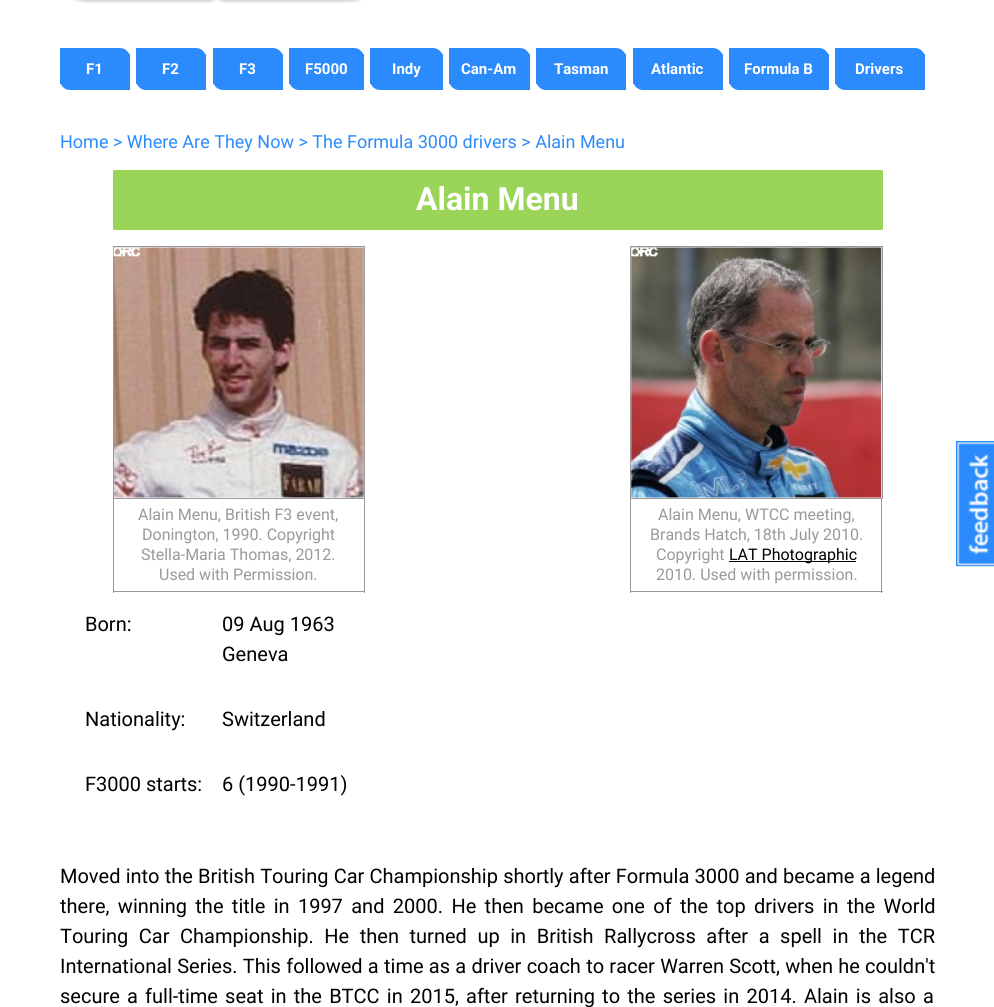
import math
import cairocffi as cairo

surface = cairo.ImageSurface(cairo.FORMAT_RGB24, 994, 1007)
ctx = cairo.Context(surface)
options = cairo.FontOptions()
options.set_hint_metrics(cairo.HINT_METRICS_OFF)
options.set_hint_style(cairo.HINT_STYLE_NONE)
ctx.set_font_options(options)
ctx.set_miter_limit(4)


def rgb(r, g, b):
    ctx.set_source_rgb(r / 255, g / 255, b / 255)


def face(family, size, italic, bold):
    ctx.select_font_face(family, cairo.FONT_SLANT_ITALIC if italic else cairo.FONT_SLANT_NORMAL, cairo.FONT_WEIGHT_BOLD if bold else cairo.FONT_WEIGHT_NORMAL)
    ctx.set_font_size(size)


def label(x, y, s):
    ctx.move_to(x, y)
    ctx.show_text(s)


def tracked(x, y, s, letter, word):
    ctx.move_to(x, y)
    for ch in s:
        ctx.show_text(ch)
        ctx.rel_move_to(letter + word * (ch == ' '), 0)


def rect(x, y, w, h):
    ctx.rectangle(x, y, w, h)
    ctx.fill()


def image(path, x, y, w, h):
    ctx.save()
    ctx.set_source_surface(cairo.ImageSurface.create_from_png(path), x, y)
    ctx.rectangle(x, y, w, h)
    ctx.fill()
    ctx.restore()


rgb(255, 255, 255)
ctx.paint()
image('image0.png', 73, 0, 289, 4)
rgb(44, 139, 252)
ctx.new_path()
ctx.move_to(60, 48)
ctx.line_to(120, 48)
ctx.curve_to(125.5, 48, 130, 52.5, 130, 58)
ctx.line_to(130, 90)
ctx.line_to(70, 90)
ctx.curve_to(64.5, 90, 60, 85.5, 60, 80)
ctx.close_path()
ctx.fill()
rect(60, 54, 70, 30)
face('Roboto', 15, 0, 1)
rgb(255, 255, 255)
label(86, 74, 'F1')
rgb(44, 139, 252)
ctx.new_path()
ctx.move_to(136, 48)
ctx.line_to(196, 48)
ctx.curve_to(201.5, 48, 206, 52.5, 206, 58)
ctx.line_to(206, 90)
ctx.line_to(146, 90)
ctx.curve_to(140.5, 90, 136, 85.5, 136, 80)
ctx.close_path()
ctx.fill()
rect(136, 54, 70, 30)
rgb(255, 255, 255)
label(162, 74, 'F2')
rgb(44, 139, 252)
ctx.new_path()
ctx.move_to(213, 48)
ctx.line_to(273, 48)
ctx.curve_to(278.5, 48, 283, 52.5, 283, 58)
ctx.line_to(283, 90)
ctx.line_to(223, 90)
ctx.curve_to(217.5, 90, 213, 85.5, 213, 80)
ctx.close_path()
ctx.fill()
rect(213, 54, 70, 30)
rgb(255, 255, 255)
label(239, 74, 'F3')
rgb(44, 139, 252)
ctx.new_path()
ctx.move_to(289, 48)
ctx.line_to(354, 48)
ctx.curve_to(359.5, 48, 364, 52.5, 364, 58)
ctx.line_to(364, 90)
ctx.line_to(299, 90)
ctx.curve_to(293.5, 90, 289, 85.5, 289, 80)
ctx.close_path()
ctx.fill()
rect(289, 54, 75, 30)
rgb(255, 255, 255)
label(305, 74, 'F5000')
rgb(44, 139, 252)
ctx.new_path()
ctx.move_to(370, 48)
ctx.line_to(433, 48)
ctx.curve_to(438.5, 48, 443, 52.5, 443, 58)
ctx.line_to(443, 90)
ctx.line_to(380, 90)
ctx.curve_to(374.5, 90, 370, 85.5, 370, 80)
ctx.close_path()
ctx.fill()
rect(370, 54, 73, 30)
rgb(255, 255, 255)
label(392, 74, 'Indy')
rgb(44, 139, 252)
ctx.new_path()
ctx.move_to(449, 48)
ctx.line_to(520, 48)
ctx.curve_to(525.5, 48, 530, 52.5, 530, 58)
ctx.line_to(530, 90)
ctx.line_to(459, 90)
ctx.curve_to(453.5, 90, 449, 85.5, 449, 80)
ctx.close_path()
ctx.fill()
rect(449, 54, 81, 30)
rgb(255, 255, 255)
label(461, 74, 'Can-Am')
rgb(44, 139, 252)
ctx.new_path()
ctx.move_to(536, 48)
ctx.line_to(616, 48)
ctx.curve_to(621.5, 48, 626, 52.5, 626, 58)
ctx.line_to(626, 90)
ctx.line_to(546, 90)
ctx.curve_to(540.5, 90, 536, 85.5, 536, 80)
ctx.close_path()
ctx.fill()
rect(536, 54, 90, 30)
rgb(255, 255, 255)
label(554, 74, 'Tasman')
rgb(44, 139, 252)
ctx.new_path()
ctx.move_to(633, 48)
ctx.line_to(713, 48)
ctx.curve_to(718.5, 48, 723, 52.5, 723, 58)
ctx.line_to(723, 90)
ctx.line_to(643, 90)
ctx.curve_to(637.5, 90, 633, 85.5, 633, 80)
ctx.close_path()
ctx.fill()
rect(633, 54, 90, 30)
rgb(255, 255, 255)
label(651, 74, 'Atlantic')
rgb(44, 139, 252)
ctx.new_path()
ctx.move_to(729, 48)
ctx.line_to(819, 48)
ctx.curve_to(824.5, 48, 829, 52.5, 829, 58)
ctx.line_to(829, 90)
ctx.line_to(739, 90)
ctx.curve_to(733.5, 90, 729, 85.5, 729, 80)
ctx.close_path()
ctx.fill()
rect(729, 54, 100, 30)
rgb(255, 255, 255)
label(744, 74, 'Formula B')
rgb(44, 139, 252)
ctx.new_path()
ctx.move_to(835, 48)
ctx.line_to(915, 48)
ctx.curve_to(920.5, 48, 925, 52.5, 925, 58)
ctx.line_to(925, 90)
ctx.line_to(845, 90)
ctx.curve_to(839.5, 90, 835, 85.5, 835, 80)
ctx.close_path()
ctx.fill()
rect(835, 54, 90, 30)
rgb(255, 255, 255)
label(855, 74, 'Drivers')
face('Roboto', 18, 0, 0)
rgb(44, 139, 252)
label(60, 148, 'Home > Where Are They Now > The Formula 3000 drivers > Alain Menu')
rgb(154, 212, 89)
rect(113, 170, 770, 60)
face('Roboto', 32, 0, 1)
rgb(255, 255, 255)
label(416, 210, 'Alain Menu')
image('image1.png', 114, 247, 250, 251)
ctx.rectangle(113.5, 246.5, 251, 252)
rgb(153, 153, 153)
ctx.set_line_width(1)
ctx.stroke()
image('image2.png', 113, 247, 28, 10)
rect(364, 499, 1, 94)
rect(113, 591, 252, 1)
rect(113, 499, 1, 94)
face('Roboto', 16, 0, 0)
label(138, 520, 'Alain Menu, British F3 event,')
label(142, 540, 'Donington, 1990. Copyright')
label(141, 560, 'Stella-Maria Thomas, 2012.')
label(159, 580, 'Used with Permission.')
image('image3.png', 631, 247, 251, 251)
ctx.rectangle(630.5, 246.5, 252, 252)
ctx.stroke()
image('image4.png', 631, 247, 27, 10)
rect(881, 499, 1, 94)
rect(630, 591, 253, 1)
rect(630, 499, 1, 94)
label(658, 520, 'Alain Menu, WTCC meeting,')
label(650, 540, 'Brands Hatch, 18th July 2010.')
label(656, 560, 'Copyright')
rgb(0, 0, 0)
rect(729, 561, 127, 1)
label(729, 560, 'LAT Photographic')
rgb(153, 153, 153)
label(656, 580, '2010. Used with permission.')
face('Roboto', 20, 0, 0)
rgb(0, 0, 0)
label(85, 631, 'Born:')
label(222, 631, '09 Aug 1963')
label(222, 661, 'Geneva')
label(85, 726, 'Nationality:')
label(222, 726, 'Switzerland')
label(85, 791, 'F3000 starts:')
label(222, 791, '6 (1990-1991)')
tracked(60, 883, 'Moved into the British Touring Car Championship shortly after Formula 3000 and became a legend', 0, 0.25)
tracked(60, 913, 'there, winning the title in 1997 and 2000. He then became one of the top drivers in the World', 0, 3.4)
tracked(60, 943, 'Touring Car Championship. He then turned up in British Rallycross after a spell in the TCR', 0, 5.6)
tracked(60, 973, 'International Series. This followed a time as a driver coach to racer Warren Scott, when he couldn\'t', 0, 0.3)
tracked(60, 1003, 'secure a full-time seat in the BTCC in 2015, after returning to the series in 2014. Alain is also a', 0, 2.25)
rgb(44, 139, 252)
rect(956, 441, 38, 125)
image('image5.png', 956, 442, 38, 125)
surface.write_to_png('render.png')
